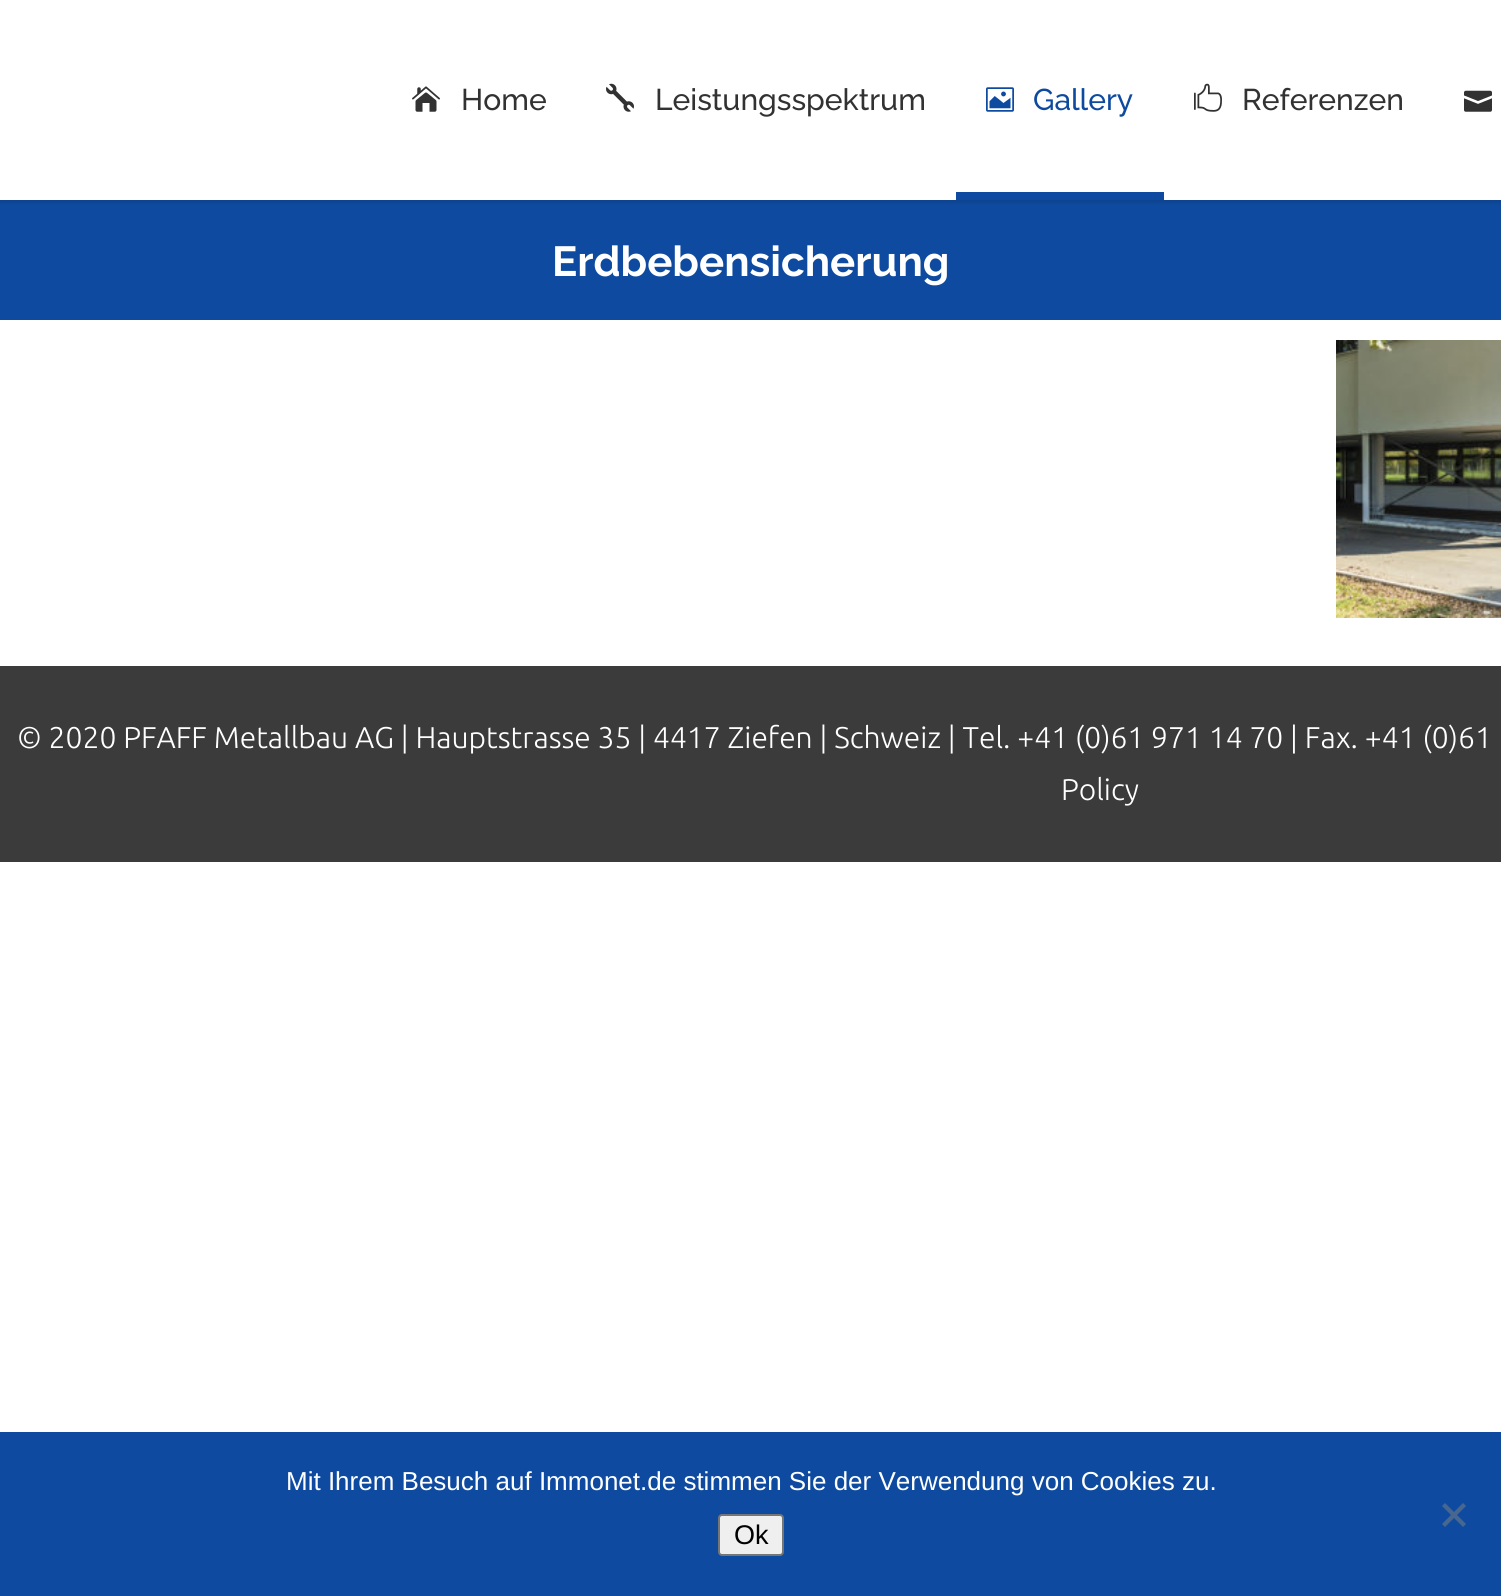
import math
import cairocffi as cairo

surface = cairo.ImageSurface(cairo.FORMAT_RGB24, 1501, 1596)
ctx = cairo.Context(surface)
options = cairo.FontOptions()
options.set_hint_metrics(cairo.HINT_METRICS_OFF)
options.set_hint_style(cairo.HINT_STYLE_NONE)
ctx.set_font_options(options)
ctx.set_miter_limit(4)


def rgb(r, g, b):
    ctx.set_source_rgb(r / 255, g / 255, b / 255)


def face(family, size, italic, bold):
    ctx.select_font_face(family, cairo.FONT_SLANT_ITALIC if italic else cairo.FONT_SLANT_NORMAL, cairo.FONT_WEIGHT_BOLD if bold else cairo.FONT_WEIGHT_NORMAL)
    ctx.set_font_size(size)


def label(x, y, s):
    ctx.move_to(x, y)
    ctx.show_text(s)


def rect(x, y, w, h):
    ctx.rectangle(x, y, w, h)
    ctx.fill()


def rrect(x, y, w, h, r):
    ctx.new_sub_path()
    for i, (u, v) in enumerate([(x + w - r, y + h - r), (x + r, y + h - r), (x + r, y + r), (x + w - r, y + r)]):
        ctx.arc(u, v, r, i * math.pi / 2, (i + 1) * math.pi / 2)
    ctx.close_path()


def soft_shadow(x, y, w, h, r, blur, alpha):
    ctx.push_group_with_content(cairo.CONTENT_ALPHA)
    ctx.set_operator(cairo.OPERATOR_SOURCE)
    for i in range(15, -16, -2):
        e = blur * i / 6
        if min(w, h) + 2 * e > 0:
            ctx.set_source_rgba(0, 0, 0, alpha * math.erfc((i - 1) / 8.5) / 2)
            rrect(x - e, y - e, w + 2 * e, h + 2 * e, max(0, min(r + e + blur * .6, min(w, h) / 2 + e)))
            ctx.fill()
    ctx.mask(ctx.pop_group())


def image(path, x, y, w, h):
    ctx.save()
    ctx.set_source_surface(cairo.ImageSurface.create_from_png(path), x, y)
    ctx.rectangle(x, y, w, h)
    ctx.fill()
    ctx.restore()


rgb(255, 255, 255)
ctx.paint()
rgb(14, 75, 160)
rect(0, 200, 1501, 120)
ctx.save()
ctx.rectangle(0, 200, 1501, 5)
ctx.clip()
rgb(0, 0, 0)
soft_shadow(0, 2, 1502, 200, 0, 3, 0.15)
ctx.restore()
image('image0.png', 412, 86, 28, 26)
face('Raleway Medium', 30, 0, 0)
rgb(50, 50, 50)
label(461, 110, 'Home')
image('image1.png', 606, 83, 28, 29)
label(655, 110, 'Leistungsspektrum')
rgb(14, 75, 160)
rect(956, 192, 208, 8)
image('image2.png', 986, 87, 28, 25)
label(1033, 110, 'Gallery')
image('image3.png', 1194, 83, 28, 29)
rgb(50, 50, 50)
label(1242, 110, 'Referenzen')
image('image4.png', 1464, 90, 28, 22)
face('Raleway', 42, 0, 1)
rgb(255, 255, 255)
label(552, 276, 'Erdbebensicherung')
image('image5.png', 1336, 340, 165, 278)
rgb(59, 59, 59)
rect(0, 666, 1501, 196)
face('Ubuntu Light', 30, 0, 0)
rgb(255, 255, 255)
label(17, 748, '© 2020 PFAFF Metallbau AG | Hauptstrasse 35 | 4417 Ziefen | Schweiz | Tel. +41 (0)61 971 14 70 | Fax. +41 (0)61')
label(1061, 800, 'Policy')
rgb(14, 75, 160)
rect(0, 1432, 1501, 164)
face('Liberation Sans', 26, 0, 0)
rgb(255, 255, 255)
label(286, 1490, 'Mit Ihrem Besuch auf Immonet.de stimmen Sie der Verwendung von Cookies zu.')
rgb(71, 102, 144)
ctx.new_path()
ctx.move_to(1463, 1503)
ctx.line_to(1466, 1506)
ctx.line_to(1445, 1527)
ctx.line_to(1442, 1524)
ctx.close_path()
ctx.fill()
ctx.new_path()
ctx.move_to(1442, 1506)
ctx.line_to(1445, 1503)
ctx.line_to(1466, 1524)
ctx.line_to(1463, 1527)
ctx.close_path()
ctx.fill()
rgb(239, 239, 239)
rrect(719, 1515, 64, 40, 3)
ctx.fill_preserve()
rgb(118, 118, 118)
ctx.stroke()
face('Liberation Sans', 27, 0, 0)
rgb(0, 0, 0)
label(734, 1544, 'Ok')
surface.write_to_png('render.png')
